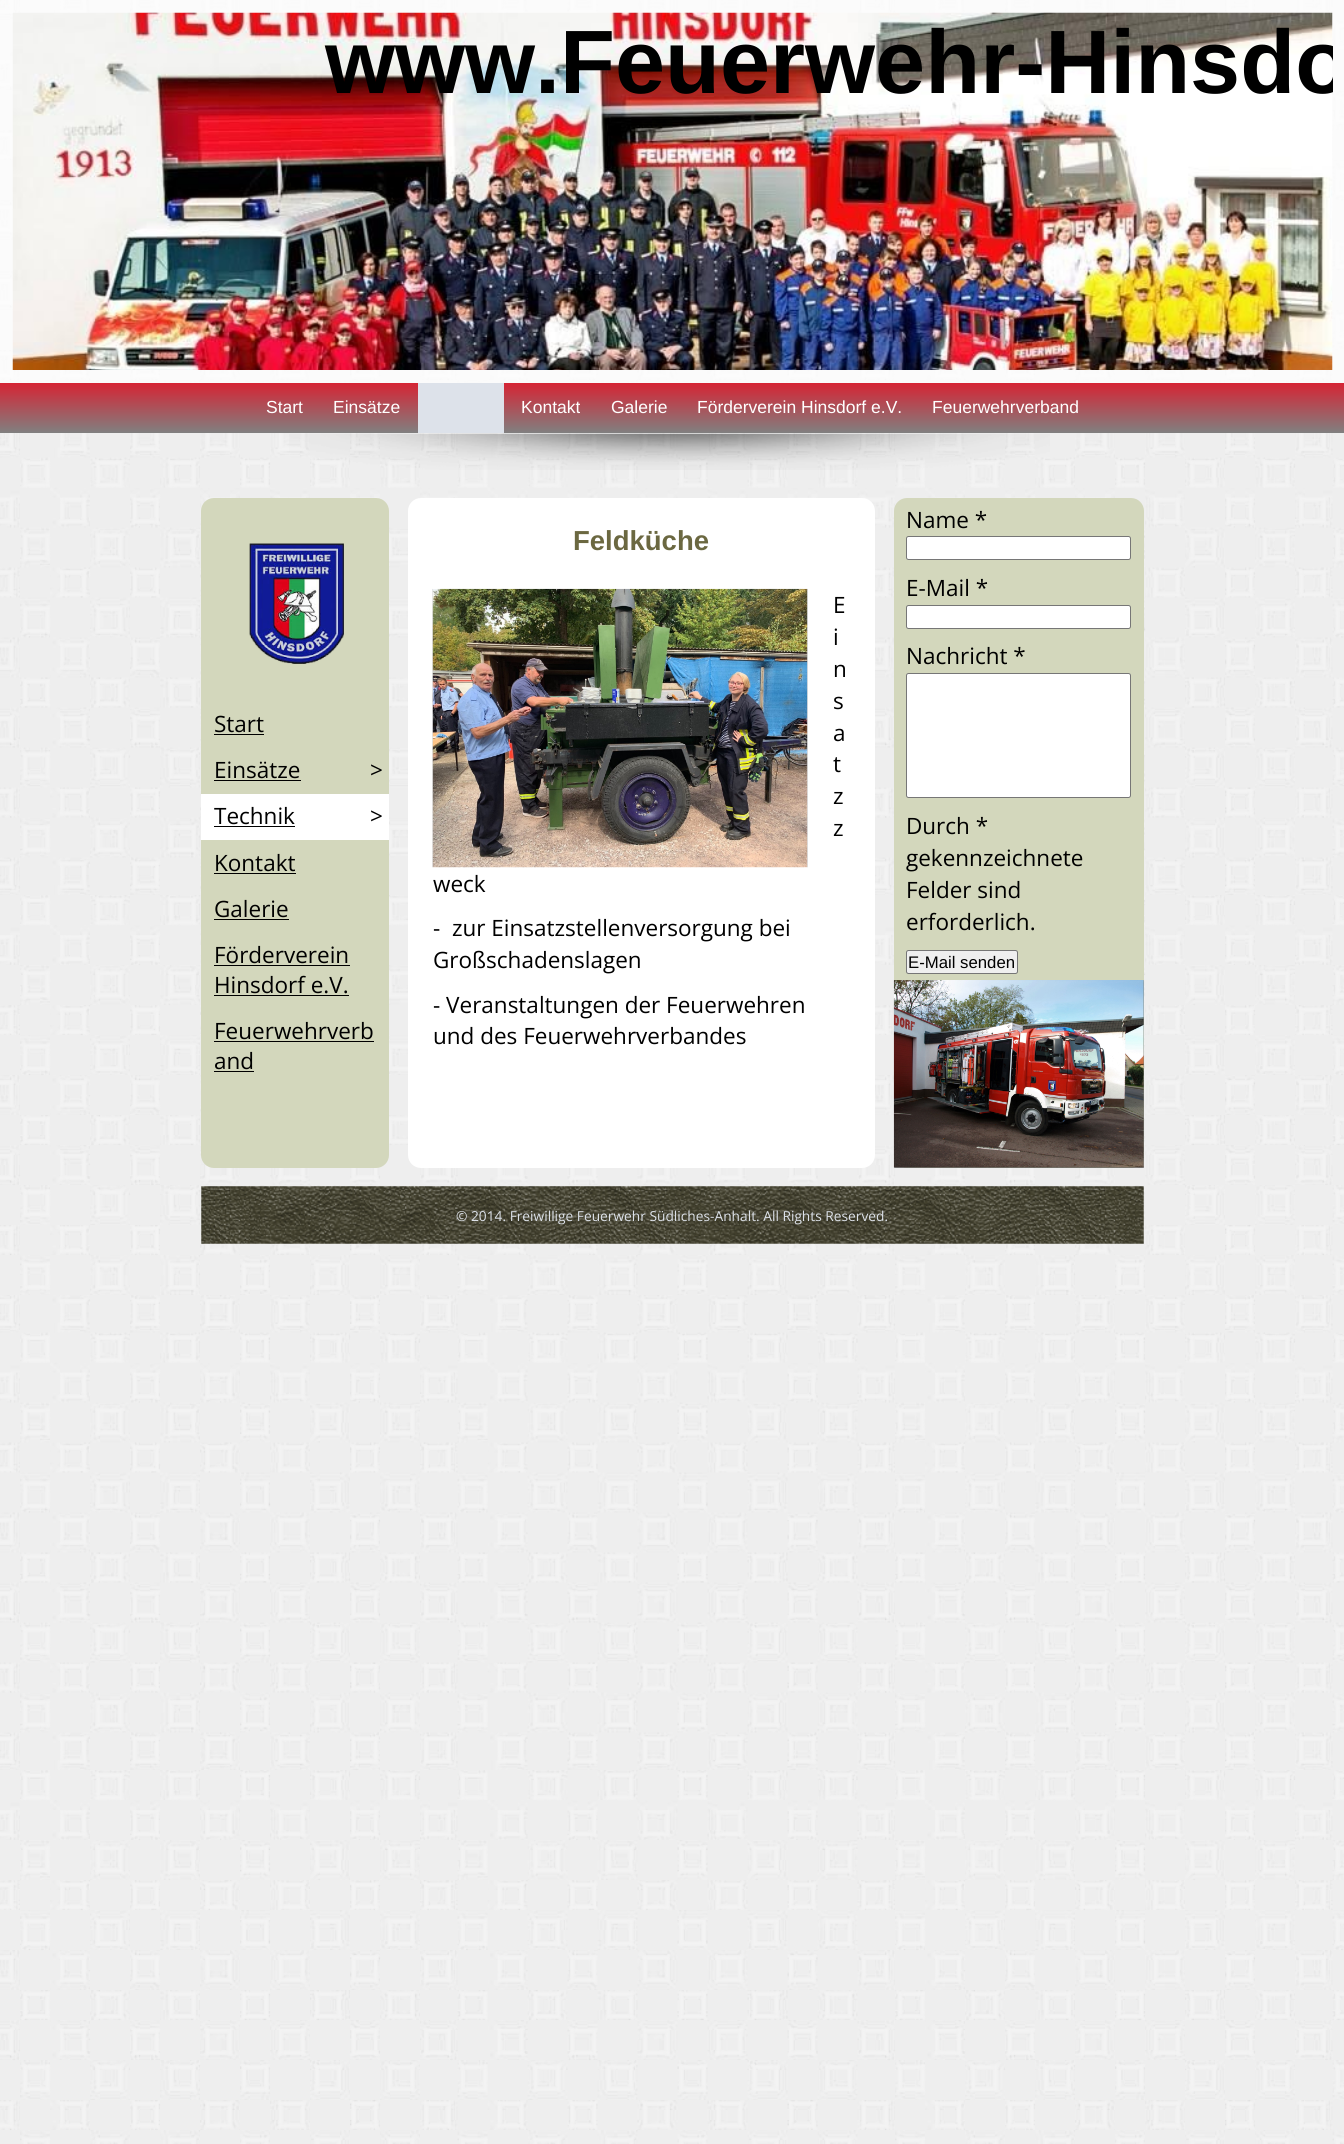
import math
import cairocffi as cairo

surface = cairo.ImageSurface(cairo.FORMAT_RGB24, 1344, 2144)
ctx = cairo.Context(surface)
options = cairo.FontOptions()
options.set_hint_metrics(cairo.HINT_METRICS_OFF)
options.set_hint_style(cairo.HINT_STYLE_NONE)
ctx.set_font_options(options)
ctx.set_miter_limit(4)


def rgb(r, g, b):
    ctx.set_source_rgb(r / 255, g / 255, b / 255)


def face(family, size, italic, bold):
    ctx.select_font_face(family, cairo.FONT_SLANT_ITALIC if italic else cairo.FONT_SLANT_NORMAL, cairo.FONT_WEIGHT_BOLD if bold else cairo.FONT_WEIGHT_NORMAL)
    ctx.set_font_size(size)


def label(x, y, s):
    ctx.move_to(x, y)
    ctx.show_text(s)


def rect(x, y, w, h):
    ctx.rectangle(x, y, w, h)
    ctx.fill()


def rrect(x, y, w, h, r):
    ctx.new_sub_path()
    for i, (u, v) in enumerate([(x + w - r, y + h - r), (x + r, y + h - r), (x + r, y + r), (x + w - r, y + r)]):
        ctx.arc(u, v, r, i * math.pi / 2, (i + 1) * math.pi / 2)
    ctx.close_path()


def soft_shadow(x, y, w, h, r, blur, alpha):
    ctx.push_group_with_content(cairo.CONTENT_ALPHA)
    ctx.set_operator(cairo.OPERATOR_SOURCE)
    for i in range(15, -16, -2):
        e = blur * i / 6
        if min(w, h) + 2 * e > 0:
            ctx.set_source_rgba(0, 0, 0, alpha * math.erfc((i - 1) / 8.5) / 2)
            rrect(x - e, y - e, w + 2 * e, h + 2 * e, max(0, min(r + e + blur * .6, min(w, h) / 2 + e)))
            ctx.fill()
    ctx.mask(ctx.pop_group())


def image(path, x, y, w, h):
    ctx.save()
    ctx.set_source_surface(cairo.ImageSurface.create_from_png(path), x, y)
    ctx.rectangle(x, y, w, h)
    ctx.fill()
    ctx.restore()


rgb(240, 240, 240)
ctx.paint()
image('image0.png', 0, 0, 1344, 2144)
ctx.set_source_rgba(1, 1, 1, 0.75)
rect(0, 0, 1344, 383)
image('image1.png', 12, 12, 1321, 358)
ctx.save()
ctx.rectangle(13, 13, 1320, 357)
ctx.clip()
face('Liberation Sans', 90, 0, 1)
rgb(0, 0, 0)
label(325, 93, 'www.Feuerwehr-Hinsdo')
ctx.restore()
gradient = cairo.LinearGradient(673, 433, 673, 383)
gradient.add_color_stop_rgba(0, 0.502, 0.502, 0.502, 1)
gradient.add_color_stop_rgba(1, 0.839, 0.141, 0.204, 1)
ctx.set_source(gradient)
rect(0, 383, 1344, 50)
face('Liberation Sans', 17.5, 0, 0)
rgb(255, 255, 255)
label(266, 413, 'Start')
label(333, 413, 'Einsätze')
rgb(221, 226, 234)
rect(418, 383, 86, 50)
rgb(255, 255, 255)
label(521, 413, 'Kontakt')
label(611, 413, 'Galerie')
label(697, 413, 'Förderverein Hinsdorf e.V.')
label(932, 413, 'Feuerwehrverband')
image('image2.png', 289, 433, 761, 37)
rgb(211, 215, 188)
rrect(201, 498, 188, 670, 13)
ctx.fill()
image('image3.png', 249, 543, 95, 121)
face('Open Sans', 22.5, 0, 0)
rgb(0, 0, 0)
label(214, 732, 'Start')
rect(214, 734, 50, 1)
label(214, 778, 'Einsätze')
rect(214, 780, 87, 1)
label(370, 778, '>')
rgb(255, 255, 255)
rect(201, 794, 188, 46)
rgb(0, 0, 0)
label(214, 824, 'Technik')
rect(214, 826, 81, 1)
label(370, 824, '>')
label(214, 871, 'Kontakt')
rect(214, 873, 82, 1)
label(214, 917, 'Galerie')
rect(214, 919, 75, 1)
label(214, 963, 'Förderverein')
rect(214, 965, 136, 1)
label(214, 993, 'Hinsdorf e.V.')
rect(214, 995, 135, 1)
label(214, 1039, 'Feuerwehrverb')
rect(214, 1041, 160, 1)
label(214, 1069, 'and')
rect(214, 1071, 40, 1)
rgb(255, 255, 255)
rrect(408, 498, 467, 670, 13)
ctx.fill()
face('Liberation Sans', 27.5, 0, 1)
rgb(107, 104, 65)
label(573, 550, 'Feldküche')
image('image4.png', 432, 588, 376, 280)
face('Open Sans', 22.5, 0, 0)
rgb(0, 0, 0)
label(833, 613, 'E')
label(833, 645, 'i')
label(833, 677, 'n')
label(833, 709, 's')
label(833, 741, 'a')
label(833, 772, 't')
label(833, 804, 'z')
label(833, 836, 'z')
label(433, 892, 'weck')
label(433, 936, '-  zur Einsatzstellenversorgung bei')
label(433, 968, 'Großschadenslagen')
label(433, 1013, '- Veranstaltungen der Feuerwehren')
label(433, 1044, 'und des Feuerwehrverbandes')
rgb(211, 215, 188)
rrect(894, 498, 250, 670, 13)
ctx.fill()
rgb(0, 0, 0)
label(906, 528, 'Name *')
rgb(255, 255, 255)
rrect(906.5, 536.5, 224, 23, 2)
ctx.fill_preserve()
rgb(118, 118, 118)
ctx.set_line_width(1)
ctx.stroke()
rgb(0, 0, 0)
label(906, 596, 'E-Mail *')
rgb(255, 255, 255)
rrect(906.5, 605.5, 224, 23, 2)
ctx.fill_preserve()
rgb(118, 118, 118)
ctx.stroke()
rgb(0, 0, 0)
label(906, 664, 'Nachricht *')
rgb(255, 255, 255)
rrect(906.5, 673.5, 224, 124, 2)
ctx.fill_preserve()
rgb(118, 118, 118)
ctx.stroke()
rgb(0, 0, 0)
label(906, 834, 'Durch *')
label(906, 866, 'gekennzeichnete')
label(906, 898, 'Felder sind')
label(906, 930, 'erforderlich.')
rgb(239, 239, 239)
rrect(906.5, 950.5, 111, 23, 2)
ctx.fill_preserve()
rgb(118, 118, 118)
ctx.stroke()
face('Liberation Sans', 16.75, 0, 0)
rgb(0, 0, 0)
label(908, 968, 'E-Mail senden')
ctx.save()
ctx.rectangle(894, 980, 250, 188)
ctx.clip()
rgb(74, 74, 74)
soft_shadow(894, 981, 250, 188, 0, 3, 1)
ctx.restore()
image('image5.png', 893, 980, 251, 188)
image('image6.png', 201, 1186, 943, 58)
face('Open Sans', 13.75, 0, 0)
rgb(221, 226, 234)
label(456, 1221, '© 2014. Freiwillige Feuerwehr Südliches-Anhalt. All Rights Reserved.')
surface.write_to_png('render.png')
